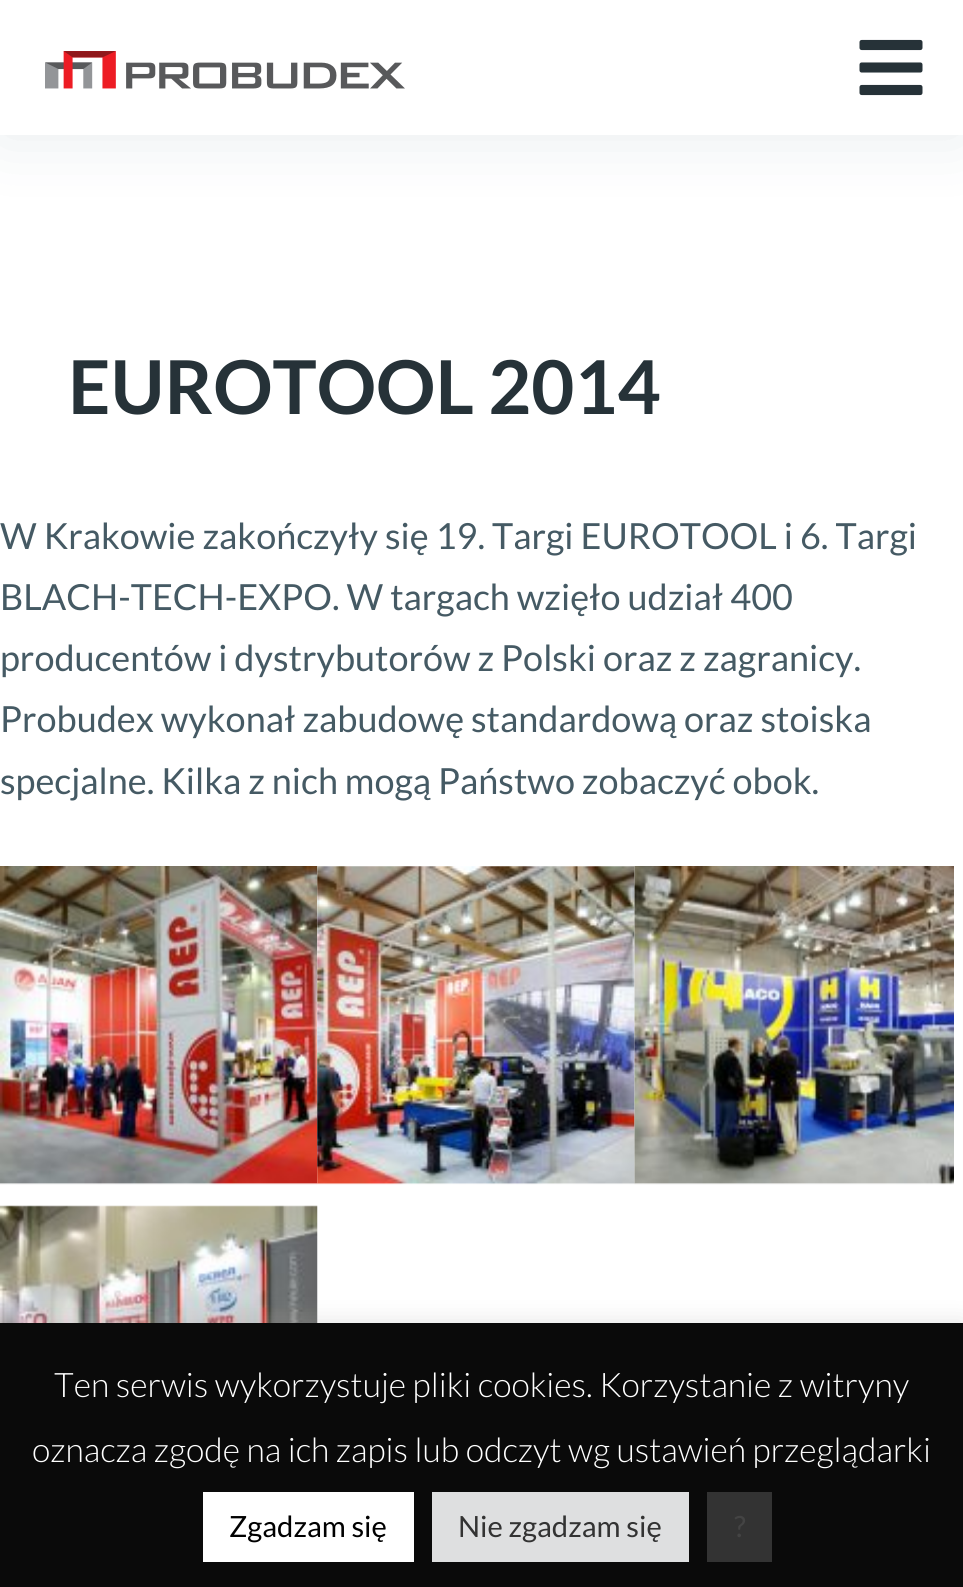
import math
import cairocffi as cairo

surface = cairo.ImageSurface(cairo.FORMAT_RGB24, 963, 1587)
ctx = cairo.Context(surface)
options = cairo.FontOptions()
options.set_hint_metrics(cairo.HINT_METRICS_OFF)
options.set_hint_style(cairo.HINT_STYLE_NONE)
ctx.set_font_options(options)
ctx.set_miter_limit(4)


def rgb(r, g, b):
    ctx.set_source_rgb(r / 255, g / 255, b / 255)


def face(family, size, italic, bold):
    ctx.select_font_face(family, cairo.FONT_SLANT_ITALIC if italic else cairo.FONT_SLANT_NORMAL, cairo.FONT_WEIGHT_BOLD if bold else cairo.FONT_WEIGHT_NORMAL)
    ctx.set_font_size(size)


def label(x, y, s):
    ctx.move_to(x, y)
    ctx.show_text(s)


def rect(x, y, w, h):
    ctx.rectangle(x, y, w, h)
    ctx.fill()


def rrect(x, y, w, h, r):
    ctx.new_sub_path()
    for i, (u, v) in enumerate([(x + w - r, y + h - r), (x + r, y + h - r), (x + r, y + r), (x + w - r, y + r)]):
        ctx.arc(u, v, r, i * math.pi / 2, (i + 1) * math.pi / 2)
    ctx.close_path()


def soft_shadow(x, y, w, h, r, blur, alpha):
    ctx.push_group_with_content(cairo.CONTENT_ALPHA)
    ctx.set_operator(cairo.OPERATOR_SOURCE)
    for i in range(15, -16, -2):
        e = blur * i / 6
        if min(w, h) + 2 * e > 0:
            ctx.set_source_rgba(0, 0, 0, alpha * math.erfc((i - 1) / 8.5) / 2)
            rrect(x - e, y - e, w + 2 * e, h + 2 * e, max(0, min(r + e + blur * .6, min(w, h) / 2 + e)))
            ctx.fill()
    ctx.mask(ctx.pop_group())


def image(path, x, y, w, h):
    ctx.save()
    ctx.set_source_surface(cairo.ImageSurface.create_from_png(path), x, y)
    ctx.rectangle(x, y, w, h)
    ctx.fill()
    ctx.restore()


rgb(255, 255, 255)
ctx.paint()
rgb(0, 53, 74)
soft_shadow(0, 0, 963, 135, 0, 34, 0.1)
rgb(255, 255, 255)
rect(0, 0, 963, 135)
image('image0.png', 45, 51, 360, 38)
image('image1.png', 859, 39, 64, 57)
face('Lato', 74.25, 0, 1)
rgb(38, 50, 56)
label(68, 414, 'EUROTOOL 2014')
face('Lato', 36, 0, 0)
rgb(69, 90, 100)
label(0, 549, 'W Krakowie zakończyły się 19. Targi EUROTOOL i 6. Targi')
label(0, 610, 'BLACH-TECH-EXPO. W targach wzięło udział 400')
label(0, 671, 'producentów i dystrybutorów z Polski oraz z zagranicy.')
label(0, 732, 'Probudex wykonał zabudowę standardową oraz stoiska')
label(0, 794, 'specjalne. Kilka z nich mogą Państwo zobaczyć obok.')
image('image2.png', 0, 866, 318, 319)
image('image3.png', 317, 866, 319, 319)
image('image4.png', 634, 866, 320, 319)
image('image5.png', 0, 1205, 318, 118)
rgb(172, 171, 171)
soft_shadow(0, 1321, 963, 265, 0, 11, 0.3)
rgb(10, 10, 10)
rect(0, 1323, 963, 264)
face('Lato Light', 33.75, 0, 0)
rgb(255, 255, 255)
label(54, 1397, 'Ten serwis wykorzystuje pliki cookies. Korzystanie z witryny')
label(32, 1462, 'oznacza zgodę na ich zapis lub odczyt wg ustawień przeglądarki')
rect(203, 1492, 211, 70)
face('Lato', 29.25, 0, 0)
rgb(0, 0, 0)
label(229, 1537, 'Zgadzam się')
rgb(222, 223, 224)
rect(432, 1492, 257, 70)
rgb(51, 51, 51)
label(458, 1537, 'Nie zgadzam się')
rect(707, 1492, 65, 70)
rgb(68, 68, 68)
label(734, 1537, '?')
surface.write_to_png('render.png')
